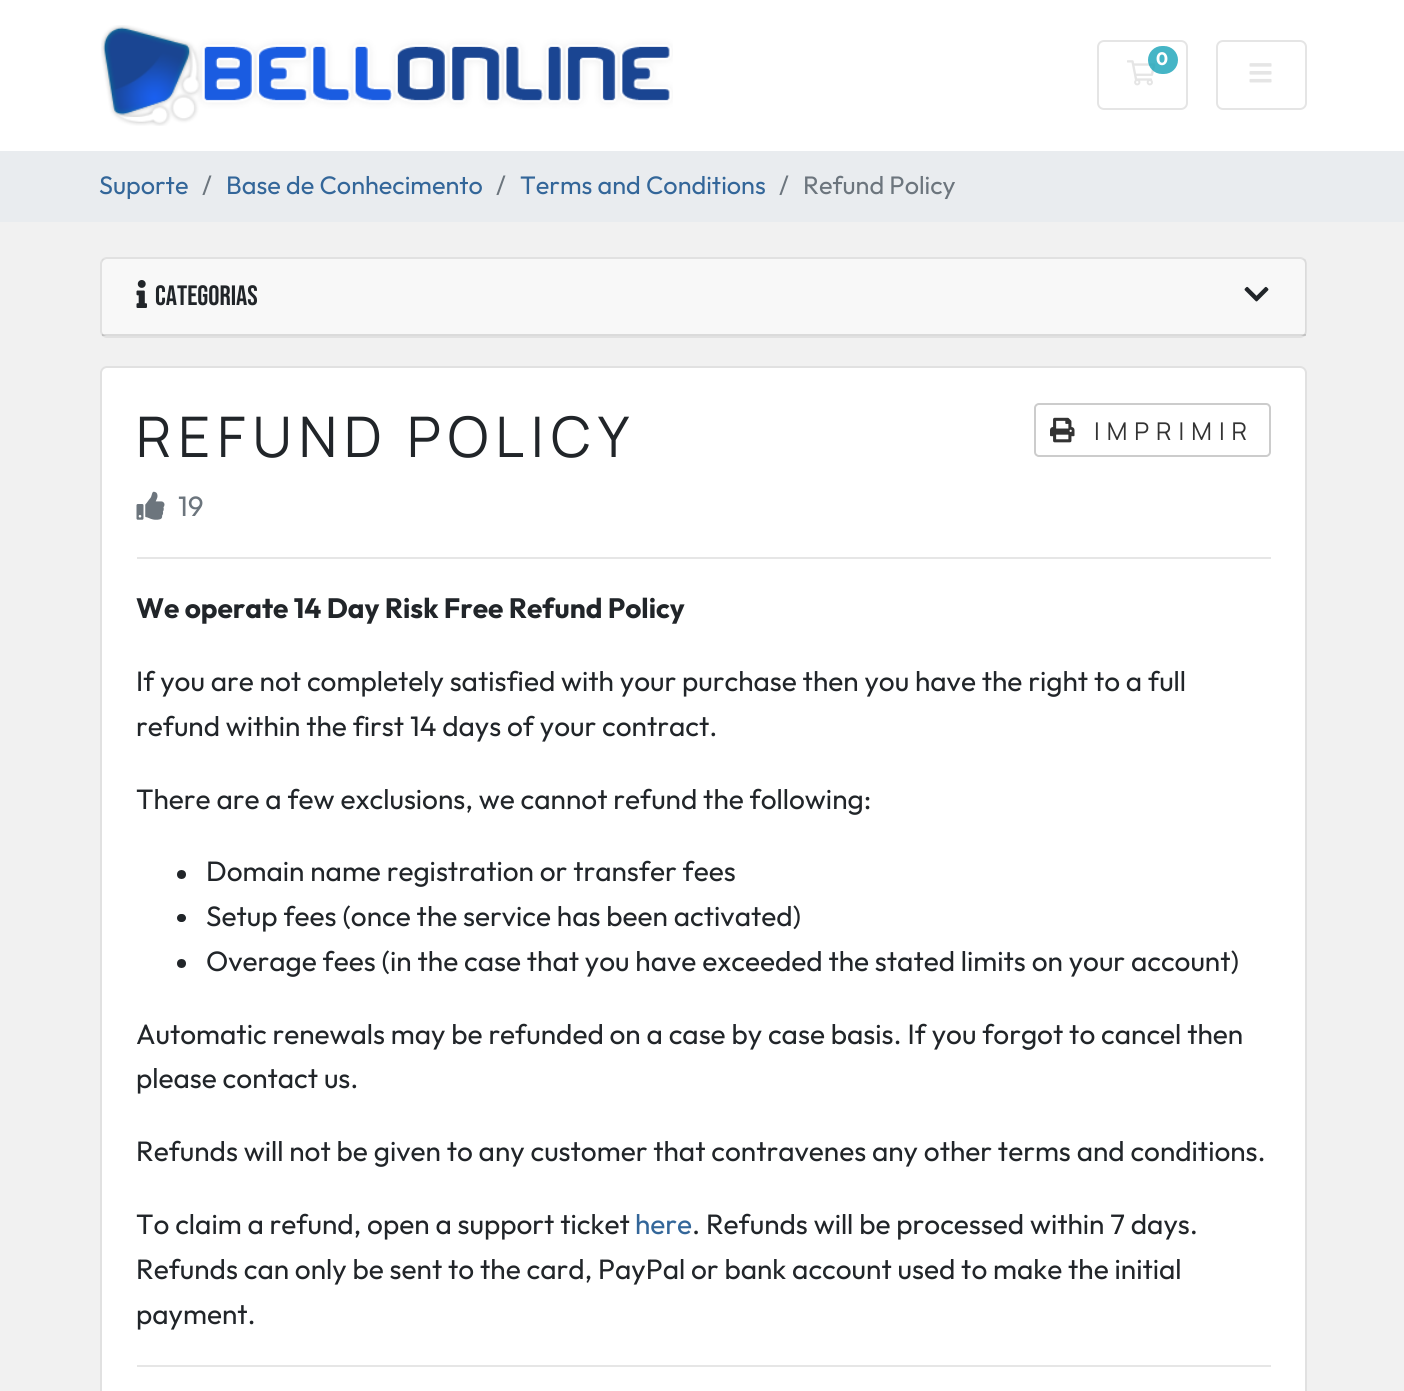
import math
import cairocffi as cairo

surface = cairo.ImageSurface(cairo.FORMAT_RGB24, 1404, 1391)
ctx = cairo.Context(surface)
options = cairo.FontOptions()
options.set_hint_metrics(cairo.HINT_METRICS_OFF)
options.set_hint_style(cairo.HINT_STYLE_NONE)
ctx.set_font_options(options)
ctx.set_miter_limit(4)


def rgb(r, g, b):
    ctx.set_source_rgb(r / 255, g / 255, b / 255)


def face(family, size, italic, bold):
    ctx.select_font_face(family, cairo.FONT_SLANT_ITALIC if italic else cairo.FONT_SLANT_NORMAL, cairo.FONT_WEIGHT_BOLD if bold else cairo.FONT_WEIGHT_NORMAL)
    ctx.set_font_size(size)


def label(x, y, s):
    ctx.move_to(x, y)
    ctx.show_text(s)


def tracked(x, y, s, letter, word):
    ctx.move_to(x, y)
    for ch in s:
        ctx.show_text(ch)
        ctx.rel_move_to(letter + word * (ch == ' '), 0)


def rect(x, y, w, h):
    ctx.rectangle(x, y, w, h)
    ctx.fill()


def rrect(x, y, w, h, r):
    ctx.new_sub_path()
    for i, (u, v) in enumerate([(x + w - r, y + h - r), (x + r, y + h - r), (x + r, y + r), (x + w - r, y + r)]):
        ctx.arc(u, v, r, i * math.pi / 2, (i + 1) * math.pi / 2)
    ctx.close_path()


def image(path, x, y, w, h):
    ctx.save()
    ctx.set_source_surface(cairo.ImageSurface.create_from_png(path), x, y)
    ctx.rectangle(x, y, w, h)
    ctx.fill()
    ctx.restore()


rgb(241, 241, 241)
ctx.paint()
rgb(255, 255, 255)
rect(0, 0, 1404, 151)
image('image0.png', 101, 25, 572, 101)
rrect(1098, 41, 89, 68, 6)
rgb(229, 229, 229)
ctx.stroke()
image('image1.png', 1127, 60, 29, 26)
ctx.set_source_rgba(0.09, 0.635, 0.722, 0.8)
rrect(1148, 46, 30, 28, 14)
ctx.fill()
face('Outfit', 18, 0, 1)
rgb(255, 255, 255)
label(1156, 65, '0')
rrect(1217, 41, 89, 68, 6)
rgb(229, 229, 229)
ctx.stroke()
image('image2.png', 1249, 63, 23, 20)
rgb(233, 236, 239)
rect(0, 151, 1404, 71)
face('Outfit', 25.25, 0, 0)
rgb(51, 102, 153)
label(99, 194, 'Suporte')
rgb(108, 117, 125)
label(202, 194, '/')
rgb(51, 102, 153)
label(226, 194, 'Base de Conhecimento')
rgb(108, 117, 125)
label(496, 194, '/')
rgb(51, 102, 153)
label(520, 194, 'Terms and Conditions')
rgb(108, 117, 125)
label(779, 194, '/')
label(803, 194, 'Refund Policy')
rgb(255, 255, 255)
rrect(100, 257, 1207, 81, 7)
ctx.fill()
rrect(101, 258, 1205, 79, 6)
ctx.set_source_rgba(0, 0, 0, 0.12)
ctx.stroke()
ctx.set_source_rgba(0, 0, 0, 0.03)
rect(102, 259, 1204, 77)
ctx.set_source_rgba(0, 0, 0, 0.12)
rect(102, 334, 1204, 2)
image('image3.png', 136, 280, 11, 28)
face('Bebas Neue', 28, 0, 0)
rgb(33, 37, 41)
label(155, 305, 'Categorias')
image('image4.png', 1244, 286, 25, 16)
rgb(255, 255, 255)
rrect(100, 366, 1207, 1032, 7)
ctx.fill()
rrect(101, 367, 1205, 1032, 6)
ctx.set_source_rgba(0, 0, 0, 0.12)
ctx.stroke()
face('Manrope', 56, 0, 0)
rgb(33, 37, 41)
tracked(136, 457, 'REFUND POLICY', 7, 0)
rrect(1035, 404, 235, 52, 4)
rgb(204, 204, 204)
ctx.stroke()
image('image5.png', 1050, 417, 25, 26)
face('Manrope', 24.5, 0, 0)
rgb(51, 51, 51)
tracked(1094, 440, 'IMPRIMIR', 7, 0)
image('image6.png', 136, 491, 29, 29)
face('Outfit', 28, 0, 0)
rgb(108, 117, 125)
label(178, 516, '19')
rgb(230, 230, 230)
rect(137, 557, 1134, 2)
face('Outfit', 28, 0, 1)
rgb(33, 37, 41)
label(136, 618, 'We operate 14 Day Risk Free Refund Policy')
face('Outfit', 28, 0, 0)
label(136, 691, 'If you are not completely satisfied with your purchase then you have the right to a full')
label(136, 736, 'refund within the first 14 days of your contract.')
label(136, 809, 'There are a few exclusions, we cannot refund the following:')
ctx.new_path()
ctx.arc(181.5, 874.5, 4.5, 0, 2 * math.pi)
ctx.fill()
label(206, 881, 'Domain name registration or transfer fees')
rrect(177, 914, 9, 8, 4)
ctx.fill()
label(206, 926, 'Setup fees (once the service has been activated)')
ctx.new_path()
ctx.arc(181.5, 963.5, 4.5, 0, 2 * math.pi)
ctx.fill()
label(206, 971, 'Overage fees (in the case that you have exceeded the stated limits on your account)')
label(136, 1044, 'Automatic renewals may be refunded on a case by case basis. If you forgot to cancel then')
label(136, 1088, 'please contact us.')
label(136, 1161, 'Refunds will not be given to any customer that contravenes any other terms and conditions.')
label(136, 1234, 'To claim a refund, open a support ticket')
rgb(51, 102, 153)
label(635, 1234, 'here')
rgb(33, 37, 41)
label(692, 1234, '. Refunds will be processed within 7 days.')
label(136, 1279, 'Refunds can only be sent to the card, PayPal or bank account used to make the initial')
label(136, 1324, 'payment.')
rgb(230, 230, 230)
rect(137, 1365, 1134, 2)
surface.write_to_png('render.png')
